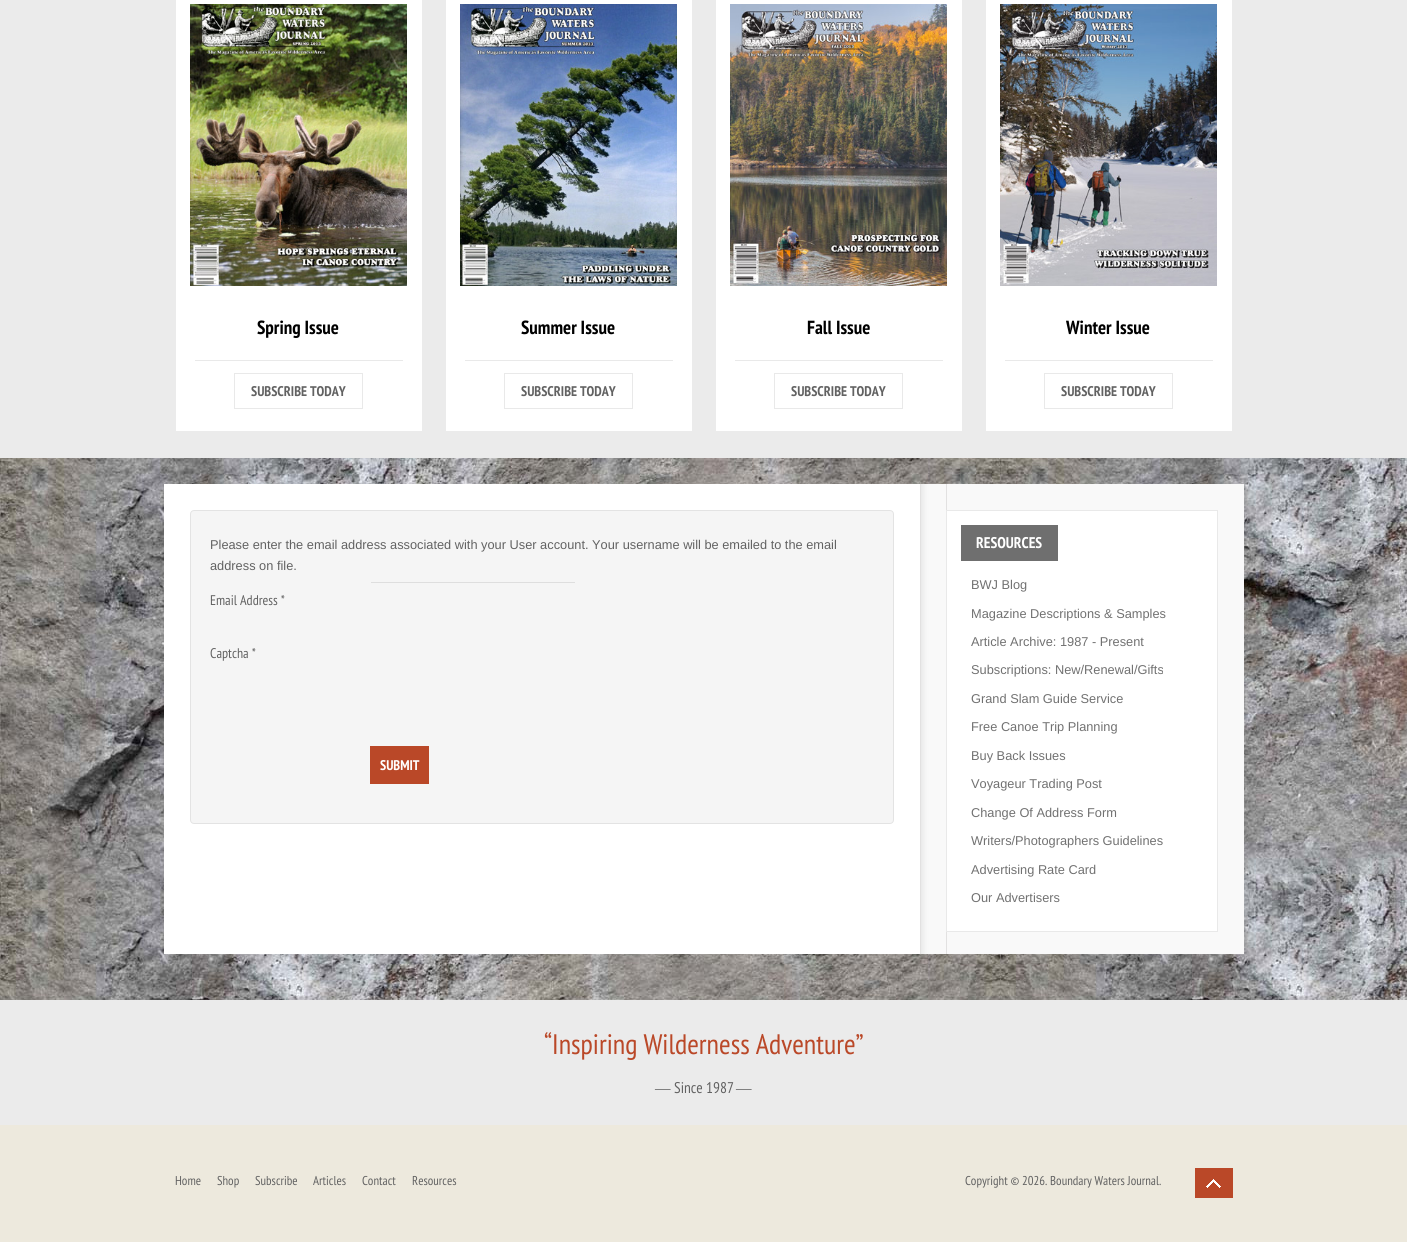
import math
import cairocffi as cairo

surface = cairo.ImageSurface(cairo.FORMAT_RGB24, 1407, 1242)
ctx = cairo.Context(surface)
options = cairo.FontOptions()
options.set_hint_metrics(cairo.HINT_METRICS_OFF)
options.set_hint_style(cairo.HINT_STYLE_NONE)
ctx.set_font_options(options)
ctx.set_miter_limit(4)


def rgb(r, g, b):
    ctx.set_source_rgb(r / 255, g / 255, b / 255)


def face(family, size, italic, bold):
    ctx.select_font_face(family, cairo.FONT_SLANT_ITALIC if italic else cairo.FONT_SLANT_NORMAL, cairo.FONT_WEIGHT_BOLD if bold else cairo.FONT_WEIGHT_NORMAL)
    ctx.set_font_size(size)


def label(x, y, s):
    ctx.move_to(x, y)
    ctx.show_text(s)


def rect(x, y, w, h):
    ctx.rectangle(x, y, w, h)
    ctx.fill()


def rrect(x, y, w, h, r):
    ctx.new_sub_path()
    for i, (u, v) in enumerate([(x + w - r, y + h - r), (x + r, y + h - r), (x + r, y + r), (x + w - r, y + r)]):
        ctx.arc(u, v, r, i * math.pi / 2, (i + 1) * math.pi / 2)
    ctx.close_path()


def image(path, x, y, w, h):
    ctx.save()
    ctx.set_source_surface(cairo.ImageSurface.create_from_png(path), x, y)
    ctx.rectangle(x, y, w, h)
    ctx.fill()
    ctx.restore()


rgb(235, 235, 235)
ctx.paint()
rgb(255, 255, 255)
rect(176, 0, 246, 431)
image('image0.png', 190, 4, 217, 282)
rgb(233, 233, 233)
rect(195, 360, 208, 1)
face('PT Sans Narrow', 19, 0, 1)
rgb(0, 0, 0)
label(257, 334, 'Spring Issue')
ctx.rectangle(234.5, 373.5, 128, 35)
rgb(233, 233, 233)
ctx.set_line_width(1)
ctx.stroke()
face('PT Sans Narrow', 14, 0, 1)
rgb(98, 98, 98)
label(251, 396, 'SUBSCRIBE TODAY')
rgb(255, 255, 255)
rect(446, 0, 246, 431)
image('image1.png', 460, 4, 217, 282)
rgb(233, 233, 233)
rect(465, 360, 208, 1)
face('PT Sans Narrow', 19, 0, 1)
rgb(0, 0, 0)
label(521, 334, 'Summer Issue')
ctx.rectangle(504.5, 373.5, 128, 35)
rgb(233, 233, 233)
ctx.stroke()
face('PT Sans Narrow', 14, 0, 1)
rgb(98, 98, 98)
label(521, 396, 'SUBSCRIBE TODAY')
rgb(255, 255, 255)
rect(716, 0, 246, 431)
image('image2.png', 730, 4, 217, 282)
rgb(233, 233, 233)
rect(735, 360, 208, 1)
face('PT Sans Narrow', 19, 0, 1)
rgb(0, 0, 0)
label(807, 334, 'Fall Issue')
ctx.rectangle(774.5, 373.5, 128, 35)
rgb(233, 233, 233)
ctx.stroke()
face('PT Sans Narrow', 14, 0, 1)
rgb(98, 98, 98)
label(791, 396, 'SUBSCRIBE TODAY')
rgb(255, 255, 255)
rect(986, 0, 246, 431)
image('image3.png', 1000, 4, 217, 282)
rgb(233, 233, 233)
rect(1005, 360, 208, 1)
face('PT Sans Narrow', 19, 0, 1)
rgb(0, 0, 0)
label(1066, 334, 'Winter Issue')
ctx.rectangle(1044.5, 373.5, 128, 35)
rgb(233, 233, 233)
ctx.stroke()
face('PT Sans Narrow', 14, 0, 1)
rgb(98, 98, 98)
label(1061, 396, 'SUBSCRIBE TODAY')
image('image4.png', 0, 458, 1407, 542)
rgb(255, 255, 255)
rect(164, 484, 756, 470)
rgb(245, 245, 245)
rrect(190.5, 510.5, 703, 313, 3.5)
ctx.fill_preserve()
rgb(227, 227, 227)
ctx.stroke()
face('Liberation Sans', 12.8, 0, 0)
rgb(98, 98, 98)
label(210, 549, 'Please enter the email address associated with your User account. Your username will be emailed to the email')
label(210, 570, 'address on file.')
rgb(222, 222, 222)
rect(371, 582, 204, 1)
face('PT Sans Narrow', 14, 0, 0)
rgb(98, 98, 98)
label(210, 605, 'Email Address *')
label(210, 658, 'Captcha *')
rgb(186, 72, 40)
rect(370, 746, 59, 38)
face('PT Sans Narrow', 14, 0, 1)
rgb(255, 255, 255)
label(380, 770, 'SUBMIT')
rgb(249, 249, 249)
rect(947, 484, 297, 470)
image('image5.png', 920, 484, 27, 470)
rgb(255, 255, 255)
ctx.rectangle(946.5, 510.5, 271, 421)
ctx.fill_preserve()
rgb(233, 233, 233)
ctx.stroke()
rgb(111, 111, 111)
rect(961, 525, 97, 36)
face('PT Sans Narrow', 15.5, 0, 1)
rgb(255, 255, 255)
label(976, 548, 'RESOURCES')
face('Liberation Sans', 12.8, 0, 0)
rgb(113, 113, 113)
label(971, 589, 'BWJ Blog')
label(971, 618, 'Magazine Descriptions & Samples')
label(971, 646, 'Article Archive: 1987 - Present')
label(971, 674, 'Subscriptions: New/Renewal/Gifts')
label(971, 703, 'Grand Slam Guide Service')
label(971, 731, 'Free Canoe Trip Planning')
label(971, 760, 'Buy Back Issues')
label(971, 788, 'Voyageur Trading Post')
label(971, 817, 'Change Of Address Form')
label(971, 845, 'Writers/Photographers Guidelines')
label(971, 874, 'Advertising Rate Card')
label(971, 902, 'Our Advertisers')
face('PT Sans Narrow', 28.2, 0, 0)
rgb(186, 72, 40)
label(544, 1054, '“Inspiring Wilderness Adventure”')
face('Liberation Serif', 15.5, 0, 0)
rgb(98, 98, 98)
label(655, 1093, '―')
face('PT Sans Narrow', 15.5, 0, 0)
label(674, 1093, 'Since 1987')
face('Liberation Serif', 15.5, 0, 0)
label(736, 1093, '―')
rgb(237, 233, 221)
rect(0, 1125, 1407, 117)
face('PT Sans Narrow', 12.8, 0, 0)
rgb(98, 98, 98)
label(175, 1185, 'Home')
label(217, 1185, 'Shop')
label(255, 1185, 'Subscribe')
label(313, 1185, 'Articles')
label(362, 1185, 'Contact')
label(412, 1185, 'Resources')
label(965, 1185, 'Copyright © 2026. Boundary Waters Journal.')
rgb(186, 72, 40)
rect(1195, 1168, 38, 30)
image('image6.png', 1206, 1179, 15, 9)
surface.write_to_png('render.png')
